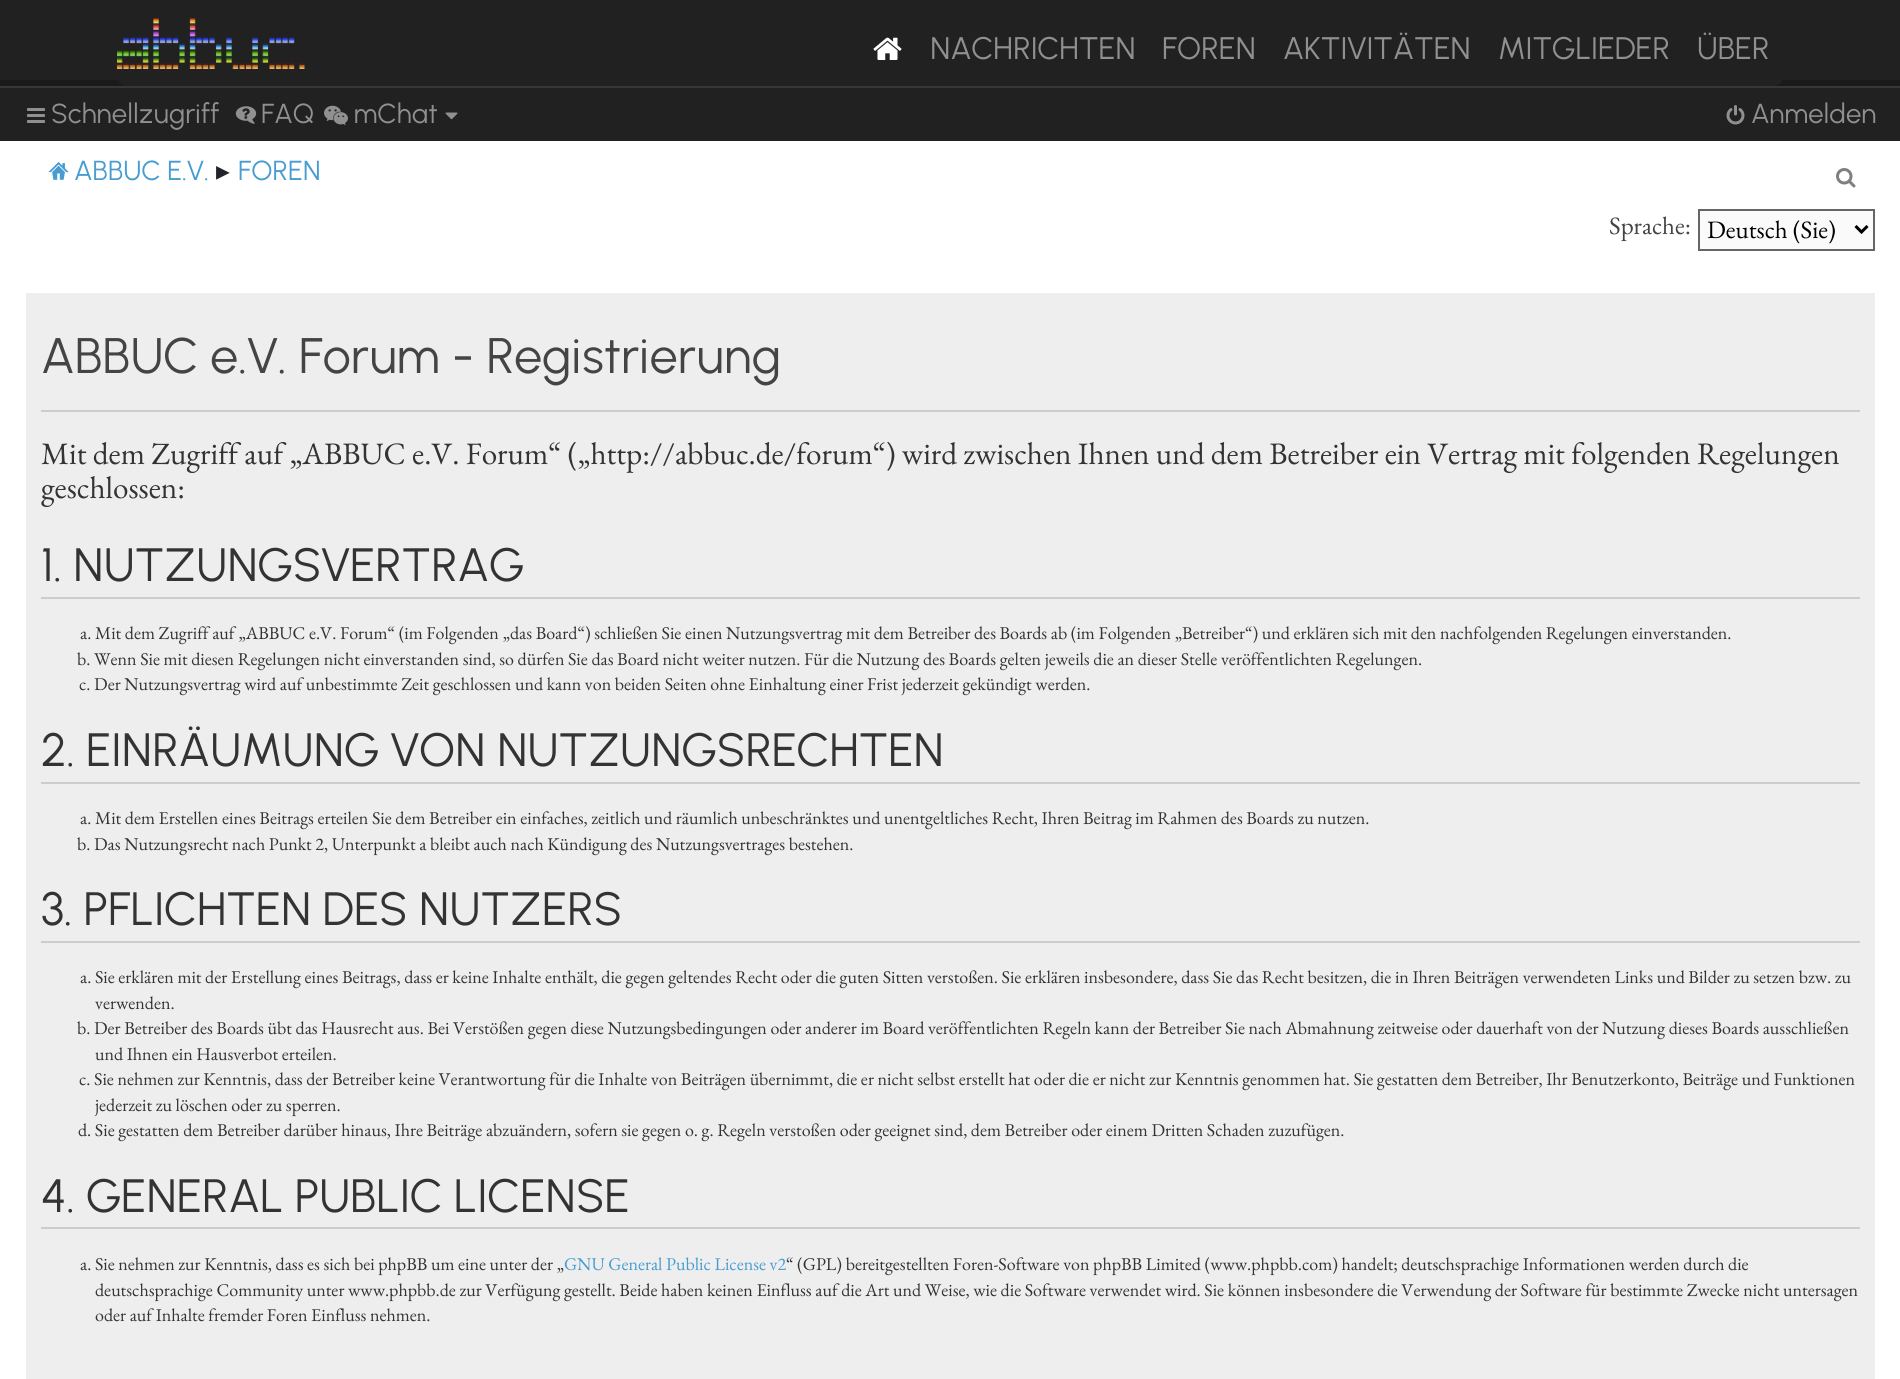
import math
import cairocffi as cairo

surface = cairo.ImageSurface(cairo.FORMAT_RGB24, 1900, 1379)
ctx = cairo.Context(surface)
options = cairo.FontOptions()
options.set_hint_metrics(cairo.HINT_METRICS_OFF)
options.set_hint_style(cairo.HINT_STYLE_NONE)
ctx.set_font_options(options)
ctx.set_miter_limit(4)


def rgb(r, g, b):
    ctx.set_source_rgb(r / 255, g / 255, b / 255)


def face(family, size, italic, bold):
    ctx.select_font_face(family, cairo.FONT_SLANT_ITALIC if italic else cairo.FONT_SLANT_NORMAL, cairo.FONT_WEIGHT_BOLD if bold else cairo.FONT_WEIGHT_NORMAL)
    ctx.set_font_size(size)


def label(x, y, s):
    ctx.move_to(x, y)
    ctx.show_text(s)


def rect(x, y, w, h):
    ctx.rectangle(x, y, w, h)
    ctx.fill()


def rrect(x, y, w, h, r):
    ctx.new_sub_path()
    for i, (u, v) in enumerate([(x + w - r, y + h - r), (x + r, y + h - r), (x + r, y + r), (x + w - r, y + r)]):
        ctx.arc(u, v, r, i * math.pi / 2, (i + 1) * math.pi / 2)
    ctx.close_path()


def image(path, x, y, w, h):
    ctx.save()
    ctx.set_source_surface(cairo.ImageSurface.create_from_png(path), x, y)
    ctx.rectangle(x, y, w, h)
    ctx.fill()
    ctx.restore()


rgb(255, 255, 255)
ctx.paint()
rgb(33, 33, 33)
rect(0, 0, 1900, 80)
rgb(26, 26, 26)
rect(0, 80, 1900, 6)
rgb(33, 33, 33)
rrect(117, 0, 1667, 86, 11)
ctx.fill()
image('image0.png', 117, 18, 188, 51)
image('image1.png', 873, 37, 29, 23)
face('Urbanist', 31.2, 0, 0)
rgb(144, 144, 144)
label(930, 59, 'NACHRICHTEN')
label(1162, 59, 'FOREN')
label(1283, 59, 'AKTIVITÄTEN')
label(1498, 59, 'MITGLIEDER')
label(1697, 59, 'ÜBER')
rgb(33, 33, 33)
rect(0, 88, 1900, 53)
rgb(55, 55, 55)
rect(0, 86, 1900, 2)
image('image2.png', 27, 108, 18, 15)
face('Urbanist', 27.5, 0, 0)
rgb(144, 144, 144)
label(51, 123, 'Schnellzugriff')
image('image3.png', 235, 106, 22, 18)
label(261, 123, 'FAQ')
image('image4.png', 324, 105, 24, 21)
label(354, 123, 'mChat')
image('image5.png', 445, 112, 13, 8)
image('image6.png', 1726, 105, 19, 20)
label(1751, 123, 'Anmelden')
image('image7.png', 48, 162, 21, 18)
rgb(71, 156, 209)
label(74, 180, 'ABBUC E.V.')
face('DejaVu Sans', 27.5, 0, 0)
rgb(33, 37, 41)
label(216, 180, '▸')
face('Urbanist', 27.5, 0, 0)
rgb(71, 156, 209)
label(238, 180, 'FOREN')
image('image8.png', 1836, 168, 20, 20)
face('EB Garamond', 25, 0, 0)
rgb(68, 68, 68)
label(1609, 234, 'Sprache:')
rgb(250, 250, 250)
ctx.rectangle(1699, 210, 175, 40)
ctx.fill_preserve()
rgb(102, 102, 102)
ctx.stroke()
ctx.new_path()
ctx.move_to(1855.5, 226)
ctx.line_to(1861.5, 232)
ctx.line_to(1867.5, 226)
rgb(0, 0, 0)
ctx.set_line_width(3)
ctx.stroke()
label(1707, 238, 'Deutsch (Sie)')
rgb(238, 238, 238)
rect(26, 293, 1849, 1086)
rgb(204, 204, 204)
rect(41, 410, 1819, 2)
face('Urbanist', 49.9, 0, 0)
rgb(68, 68, 68)
label(41, 373, 'ABBUC e.V. Forum - Registrierung')
face('EB Garamond', 31.2, 0, 0)
rgb(51, 51, 51)
label(41, 464, 'Mit dem Zugriff auf „ABBUC e.V. Forum“ („http://abbuc.de/forum“) wird zwischen Ihnen und dem Betreiber ein Vertrag mit folgenden Regelungen')
label(41, 498, 'geschlossen:')
rgb(204, 204, 204)
rect(41, 597, 1819, 2)
face('Urbanist', 46.75, 0, 0)
rgb(51, 51, 51)
label(41, 581, '1. NUTZUNGSVERTRAG')
face('EB Garamond', 18, 0, 0)
label(80, 639, 'a. Mit dem Zugriff auf „ABBUC e.V. Forum“ (im Folgenden „das Board“) schließen Sie einen Nutzungsvertrag mit dem Betreiber des Boards ab (im Folgenden „Betreiber“) und erklären sich mit den nachfolgenden Regelungen einverstanden.')
label(77, 665, 'b. Wenn Sie mit diesen Regelungen nicht einverstanden sind, so dürfen Sie das Board nicht weiter nutzen. Für die Nutzung des Boards gelten jeweils die an dieser Stelle veröffentlichten Regelungen.')
label(79, 690, 'c. Der Nutzungsvertrag wird auf unbestimmte Zeit geschlossen und kann von beiden Seiten ohne Einhaltung einer Frist jederzeit gekündigt werden.')
rgb(204, 204, 204)
rect(41, 782, 1819, 2)
face('Urbanist', 46.75, 0, 0)
rgb(51, 51, 51)
label(41, 766, '2. EINRÄUMUNG VON NUTZUNGSRECHTEN')
face('EB Garamond', 18, 0, 0)
label(80, 824, 'a. Mit dem Erstellen eines Beitrags erteilen Sie dem Betreiber ein einfaches, zeitlich und räumlich unbeschränktes und unentgeltliches Recht, Ihren Beitrag im Rahmen des Boards zu nutzen.')
label(77, 850, 'b. Das Nutzungsrecht nach Punkt 2, Unterpunkt a bleibt auch nach Kündigung des Nutzungsvertrages bestehen.')
rgb(204, 204, 204)
rect(41, 941, 1819, 2)
face('Urbanist', 46.75, 0, 0)
rgb(51, 51, 51)
label(41, 925, '3. PFLICHTEN DES NUTZERS')
face('EB Garamond', 18, 0, 0)
label(80, 983, 'a. Sie erklären mit der Erstellung eines Beitrags, dass er keine Inhalte enthält, die gegen geltendes Recht oder die guten Sitten verstoßen. Sie erklären insbesondere, dass Sie das Recht besitzen, die in Ihren Beiträgen verwendeten Links und Bilder zu setzen bzw. zu')
label(95, 1009, 'verwenden.')
label(77, 1034, 'b. Der Betreiber des Boards übt das Hausrecht aus. Bei Verstößen gegen diese Nutzungsbedingungen oder anderer im Board veröffentlichten Regeln kann der Betreiber Sie nach Abmahnung zeitweise oder dauerhaft von der Nutzung dieses Boards ausschließen')
label(95, 1060, 'und Ihnen ein Hausverbot erteilen.')
label(79, 1085, 'c. Sie nehmen zur Kenntnis, dass der Betreiber keine Verantwortung für die Inhalte von Beiträgen übernimmt, die er nicht selbst erstellt hat oder die er nicht zur Kenntnis genommen hat. Sie gestatten dem Betreiber, Ihr Benutzerkonto, Beiträge und Funktionen')
label(95, 1111, 'jederzeit zu löschen oder zu sperren.')
label(78, 1136, 'd. Sie gestatten dem Betreiber darüber hinaus, Ihre Beiträge abzuändern, sofern sie gegen o. g. Regeln verstoßen oder geeignet sind, dem Betreiber oder einem Dritten Schaden zuzufügen.')
rgb(204, 204, 204)
rect(41, 1227, 1819, 2)
face('Urbanist', 46.75, 0, 0)
rgb(51, 51, 51)
label(41, 1212, '4. GENERAL PUBLIC LICENSE')
face('EB Garamond', 18, 0, 0)
label(80, 1270, 'a. Sie nehmen zur Kenntnis, dass es sich bei phpBB um eine unter der „')
rgb(71, 156, 209)
label(564, 1270, 'GNU General Public License v2')
rgb(51, 51, 51)
label(786, 1270, '“ (GPL) bereitgestellten Foren-Software von phpBB Limited (www.phpbb.com) handelt; deutschsprachige Informationen werden durch die')
label(95, 1296, 'deutschsprachige Community unter www.phpbb.de zur Verfügung gestellt. Beide haben keinen Einfluss auf die Art und Weise, wie die Software verwendet wird. Sie können insbesondere die Verwendung der Software für bestimmte Zwecke nicht untersagen')
label(95, 1321, 'oder auf Inhalte fremder Foren Einfluss nehmen.')
surface.write_to_png('render.png')
